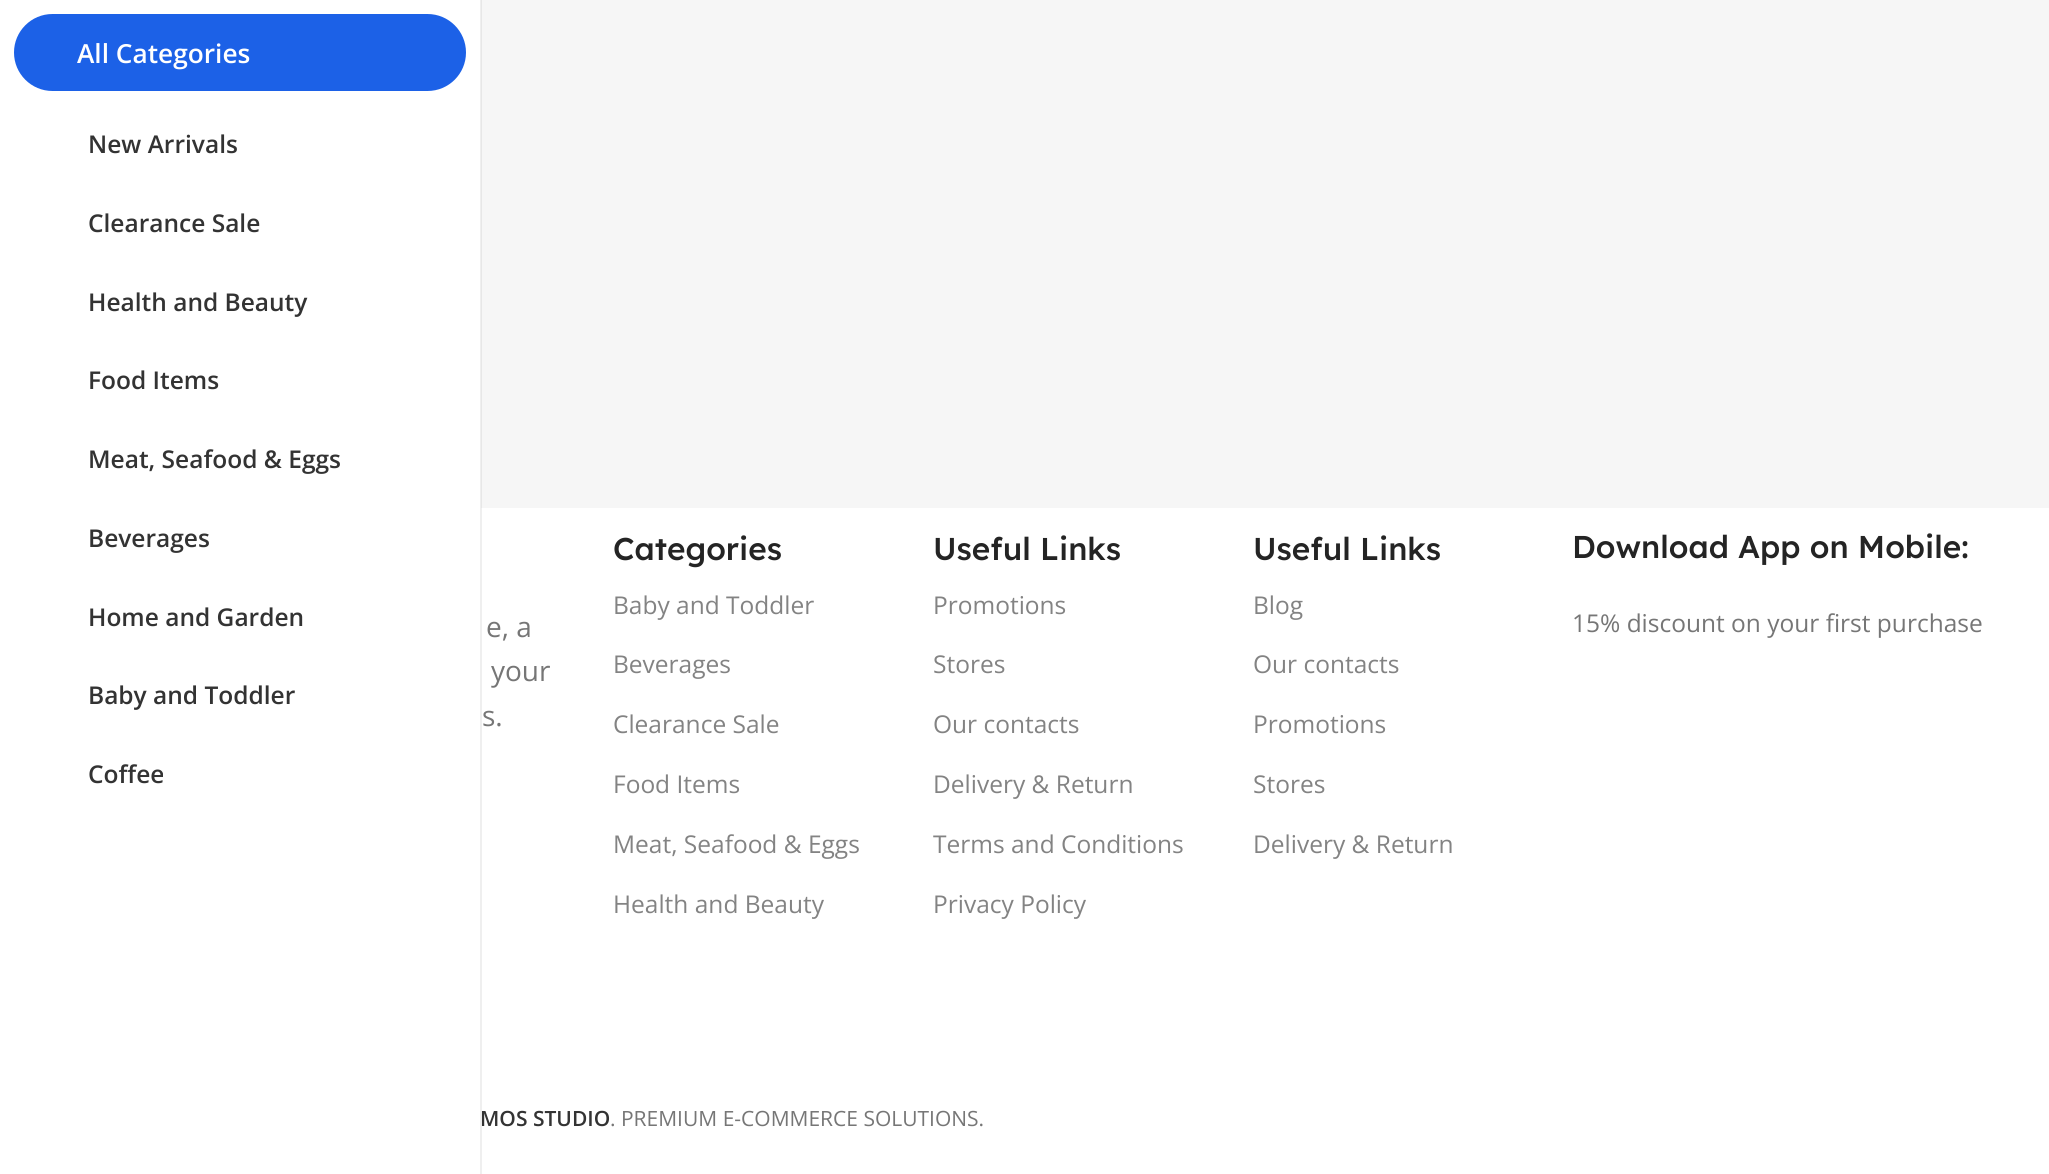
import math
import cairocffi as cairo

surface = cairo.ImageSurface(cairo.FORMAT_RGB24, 2049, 1174)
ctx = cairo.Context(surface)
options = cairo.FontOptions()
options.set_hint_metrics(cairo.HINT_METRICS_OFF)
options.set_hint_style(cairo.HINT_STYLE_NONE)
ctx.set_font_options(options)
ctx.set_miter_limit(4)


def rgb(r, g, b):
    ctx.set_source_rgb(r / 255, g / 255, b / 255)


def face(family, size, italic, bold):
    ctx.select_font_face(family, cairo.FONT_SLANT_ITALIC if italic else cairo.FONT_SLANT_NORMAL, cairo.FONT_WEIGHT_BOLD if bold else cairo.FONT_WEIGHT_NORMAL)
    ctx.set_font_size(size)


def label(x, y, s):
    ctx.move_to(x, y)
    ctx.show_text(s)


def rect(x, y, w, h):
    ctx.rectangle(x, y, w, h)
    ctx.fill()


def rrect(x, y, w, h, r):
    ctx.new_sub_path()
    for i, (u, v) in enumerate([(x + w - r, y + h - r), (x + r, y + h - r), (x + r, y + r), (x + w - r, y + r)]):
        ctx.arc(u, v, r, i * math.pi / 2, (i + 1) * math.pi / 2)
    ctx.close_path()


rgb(255, 255, 255)
ctx.paint()
rgb(246, 246, 246)
rect(481, 0, 1568, 508)
ctx.set_source_rgba(0.463, 0.463, 0.463, 0.12)
rect(480, 0, 2, 1174)
rgb(28, 97, 231)
rrect(14, 14, 452, 77, 38.5)
ctx.fill()
face('Open Sans SemiBold', 26.25, 0, 0)
rgb(255, 255, 255)
label(77, 63, 'All Categories')
face('Open Sans SemiBold', 24.5, 0, 0)
rgb(51, 51, 51)
label(88, 153, 'New Arrivals')
label(88, 232, 'Clearance Sale')
label(88, 311, 'Health and Beauty')
label(88, 389, 'Food Items')
label(88, 468, 'Meat, Seafood & Eggs')
label(88, 547, 'Beverages')
label(88, 626, 'Home and Garden')
label(88, 704, 'Baby and Toddler')
label(88, 783, 'Coffee')
face('Open Sans', 28, 0, 0)
rgb(118, 118, 118)
label(486, 637, 'e, a')
label(491, 681, 'your')
label(482, 726, 's.')
face('Lexend Deca Medium', 31.5, 0, 0)
rgb(36, 36, 36)
label(613, 560, 'Categories')
face('Open Sans', 24.5, 0, 0)
rgb(131, 131, 131)
label(613, 614, 'Baby and Toddler')
label(613, 673, 'Beverages')
label(613, 733, 'Clearance Sale')
label(613, 793, 'Food Items')
label(613, 853, 'Meat, Seafood & Eggs')
label(613, 913, 'Health and Beauty')
face('Lexend Deca Medium', 31.5, 0, 0)
rgb(36, 36, 36)
label(933, 560, 'Useful Links')
face('Open Sans', 24.5, 0, 0)
rgb(131, 131, 131)
label(933, 614, 'Promotions')
label(933, 673, 'Stores')
label(933, 733, 'Our contacts')
label(933, 793, 'Delivery & Return')
label(933, 853, 'Terms and Conditions')
label(933, 913, 'Privacy Policy')
face('Lexend Deca Medium', 31.5, 0, 0)
rgb(36, 36, 36)
label(1253, 560, 'Useful Links')
face('Open Sans', 24.5, 0, 0)
rgb(131, 131, 131)
label(1253, 614, 'Blog')
label(1253, 673, 'Our contacts')
label(1253, 733, 'Promotions')
label(1253, 793, 'Stores')
label(1253, 853, 'Delivery & Return')
face('Lexend Deca Medium', 31.5, 0, 0)
rgb(36, 36, 36)
label(1572, 558, 'Download App on Mobile:')
face('Open Sans', 24.5, 0, 0)
rgb(118, 118, 118)
label(1572, 632, '15% discount on your first purchase')
face('Open Sans SemiBold', 21, 0, 0)
rgb(51, 51, 51)
label(480, 1126, 'MOS STUDIO')
face('Open Sans', 21, 0, 0)
rgb(118, 118, 118)
label(610, 1126, '. PREMIUM E-COMMERCE SOLUTIONS.')
surface.write_to_png('render.png')
